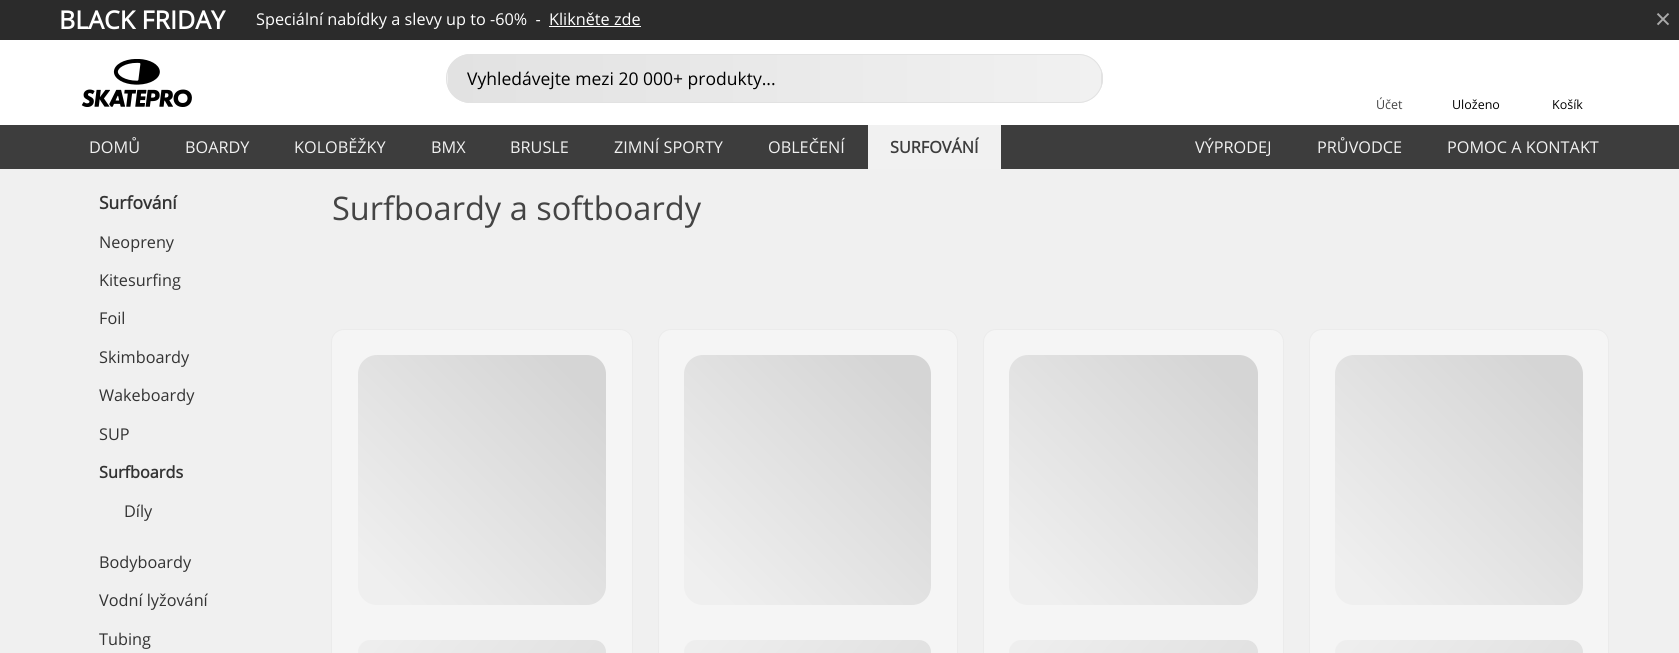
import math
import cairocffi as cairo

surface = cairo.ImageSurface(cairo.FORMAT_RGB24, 1679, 653)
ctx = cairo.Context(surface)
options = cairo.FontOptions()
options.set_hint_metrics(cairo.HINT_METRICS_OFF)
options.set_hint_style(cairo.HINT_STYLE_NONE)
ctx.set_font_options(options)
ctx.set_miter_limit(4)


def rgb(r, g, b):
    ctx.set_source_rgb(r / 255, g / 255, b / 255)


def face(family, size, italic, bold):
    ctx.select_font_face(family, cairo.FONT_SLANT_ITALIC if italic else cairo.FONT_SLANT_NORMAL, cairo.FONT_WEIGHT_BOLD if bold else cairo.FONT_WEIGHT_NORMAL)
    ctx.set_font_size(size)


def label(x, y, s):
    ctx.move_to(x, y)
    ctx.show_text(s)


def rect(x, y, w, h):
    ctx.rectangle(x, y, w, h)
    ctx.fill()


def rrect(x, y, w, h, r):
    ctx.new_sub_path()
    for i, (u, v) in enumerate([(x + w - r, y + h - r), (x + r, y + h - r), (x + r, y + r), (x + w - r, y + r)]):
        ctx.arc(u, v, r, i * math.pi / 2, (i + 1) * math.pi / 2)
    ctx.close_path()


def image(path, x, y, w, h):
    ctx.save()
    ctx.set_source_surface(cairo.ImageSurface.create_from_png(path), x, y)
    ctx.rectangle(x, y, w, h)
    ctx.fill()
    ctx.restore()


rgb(61, 61, 61)
ctx.paint()
rgb(43, 43, 43)
rect(0, 0, 1679, 40)
face('Open Sans', 25, 0, 1)
rgb(255, 255, 255)
label(59, 29, 'BLACK FRIDAY')
face('Open Sans', 16.25, 0, 0)
label(256, 25, 'Speciální nabídky a slevy up to -60%  -')
label(549, 25, 'Klikněte zde')
rect(549, 26, 92, 1)
face('Open Sans', 28, 0, 0)
rgb(170, 170, 170)
label(1655, 29, '×')
rgb(255, 255, 255)
rect(0, 40, 1679, 85)
image('image0.png', 81, 59, 111, 48)
ctx.save()
rrect(446, 54, 657, 49, 24.5)
ctx.clip()
gradient = cairo.LinearGradient(-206, 78, 448, 78)
gradient.add_color_stop_rgba(0, 0.886, 0.886, 0.886, 1)
gradient.add_color_stop_rgba(1, 0.945, 0.945, 0.945, 1)
ctx.set_source(gradient)
rect(446, 69, 2, 19)
gradient = cairo.LinearGradient(448, 78, 1101, 78)
gradient.add_color_stop_rgba(0, 0.886, 0.886, 0.886, 1)
gradient.add_color_stop_rgba(1, 0.945, 0.945, 0.945, 1)
ctx.set_source(gradient)
rect(448, 54, 653, 49)
gradient = cairo.LinearGradient(1101, 78, 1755, 78)
gradient.add_color_stop_rgba(0, 0.886, 0.886, 0.886, 1)
gradient.add_color_stop_rgba(1, 0.945, 0.945, 0.945, 1)
ctx.set_source(gradient)
rect(1101, 69, 2, 19)
ctx.restore()
rrect(446.5, 54.5, 656, 48, 24)
rgb(226, 226, 226)
ctx.set_line_width(1)
ctx.stroke()
face('Open Sans', 17.5, 0, 0)
rgb(0, 0, 0)
label(467, 85, 'Vyhledávejte mezi 20 000+ produkty...')
face('Open Sans', 12.5, 0, 0)
rgb(68, 68, 68)
label(1376, 109, 'Účet')
rgb(0, 0, 0)
label(1452, 109, 'Uloženo')
label(1552, 109, 'Košík')
face('Open Sans', 16.25, 0, 0)
rgb(241, 241, 241)
label(89, 153, 'DOMŮ')
label(185, 153, 'BOARDY')
label(294, 153, 'KOLOBĚŽKY')
label(431, 153, 'BMX')
label(510, 153, 'BRUSLE')
label(614, 153, 'ZIMNÍ SPORTY')
label(768, 153, 'OBLEČENÍ')
rect(868, 125, 133, 44)
face('Open Sans', 16.25, 0, 1)
rgb(61, 61, 61)
label(890, 153, 'SURFOVÁNÍ')
face('Open Sans', 16.25, 0, 0)
rgb(241, 241, 241)
label(1195, 153, 'VÝPRODEJ')
label(1317, 153, 'PRŮVODCE')
label(1447, 153, 'POMOC A KONTAKT')
rgb(240, 240, 240)
rect(0, 169, 1679, 484)
face('Open Sans', 17.5, 0, 1)
rgb(51, 51, 51)
label(99, 209, 'Surfování')
face('Open Sans', 16.25, 0, 0)
label(99, 248, 'Neopreny')
label(99, 286, 'Kitesurfing')
label(99, 324, 'Foil')
label(99, 363, 'Skimboardy')
label(99, 401, 'Wakeboardy')
label(99, 440, 'SUP')
face('Open Sans', 16.25, 0, 1)
label(99, 478, 'Surfboards')
face('Open Sans', 16.25, 0, 0)
label(124, 517, 'Díly')
label(99, 568, 'Bodyboardy')
label(99, 606, 'Vodní lyžování')
label(99, 645, 'Tubing')
face('Open Sans', 32.5, 0, 0)
rgb(68, 68, 68)
label(332, 220, 'Surfboardy a softboardy')
rgb(245, 245, 245)
rrect(331.5, 329.5, 301, 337, 12.5)
ctx.fill_preserve()
rgb(235, 235, 235)
ctx.stroke()
gradient = cairo.LinearGradient(356, 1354, 1354, 356)
gradient.add_color_stop_rgba(0.4, 0.937, 0.937, 0.937, 1)
gradient.add_color_stop_rgba(0.6, 0.835, 0.835, 0.835, 1)
ctx.set_source(gradient)
rrect(358, 355, 248, 250, 19)
ctx.fill()
gradient = cairo.LinearGradient(405, 585, 559, 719)
gradient.add_color_stop_rgba(0, 0.937, 0.937, 0.937, 1)
gradient.add_color_stop_rgba(1, 0.882, 0.882, 0.882, 1)
ctx.set_source(gradient)
rrect(358, 640, 248, 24, 12)
ctx.fill()
rgb(245, 245, 245)
rrect(658.5, 329.5, 299, 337, 12.5)
ctx.fill_preserve()
rgb(235, 235, 235)
ctx.stroke()
gradient = cairo.LinearGradient(681, 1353, 1676, 358)
gradient.add_color_stop_rgba(0.4, 0.937, 0.937, 0.937, 1)
gradient.add_color_stop_rgba(0.6, 0.835, 0.835, 0.835, 1)
ctx.set_source(gradient)
rrect(684, 355, 247, 250, 19)
ctx.fill()
gradient = cairo.LinearGradient(731, 585, 884, 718)
gradient.add_color_stop_rgba(0, 0.937, 0.937, 0.937, 1)
gradient.add_color_stop_rgba(1, 0.882, 0.882, 0.882, 1)
ctx.set_source(gradient)
rrect(684, 640, 247, 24, 12)
ctx.fill()
rgb(245, 245, 245)
rrect(983.5, 329.5, 300, 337, 12.5)
ctx.fill_preserve()
rgb(235, 235, 235)
ctx.stroke()
gradient = cairo.LinearGradient(1008, 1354, 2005, 356)
gradient.add_color_stop_rgba(0.4, 0.937, 0.937, 0.937, 1)
gradient.add_color_stop_rgba(0.6, 0.835, 0.835, 0.835, 1)
ctx.set_source(gradient)
rrect(1009, 355, 249, 250, 19)
ctx.fill()
gradient = cairo.LinearGradient(1056, 585, 1210, 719)
gradient.add_color_stop_rgba(0, 0.937, 0.937, 0.937, 1)
gradient.add_color_stop_rgba(1, 0.882, 0.882, 0.882, 1)
ctx.set_source(gradient)
rrect(1009, 640, 249, 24, 12)
ctx.fill()
rgb(245, 245, 245)
rrect(1309.5, 329.5, 299, 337, 12.5)
ctx.fill_preserve()
rgb(235, 235, 235)
ctx.stroke()
gradient = cairo.LinearGradient(1333, 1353, 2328, 358)
gradient.add_color_stop_rgba(0.4, 0.937, 0.937, 0.937, 1)
gradient.add_color_stop_rgba(0.6, 0.835, 0.835, 0.835, 1)
ctx.set_source(gradient)
rrect(1335, 355, 248, 250, 19)
ctx.fill()
gradient = cairo.LinearGradient(1382, 585, 1535, 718)
gradient.add_color_stop_rgba(0, 0.937, 0.937, 0.937, 1)
gradient.add_color_stop_rgba(1, 0.882, 0.882, 0.882, 1)
ctx.set_source(gradient)
rrect(1335, 640, 248, 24, 12)
ctx.fill()
surface.write_to_png('render.png')
